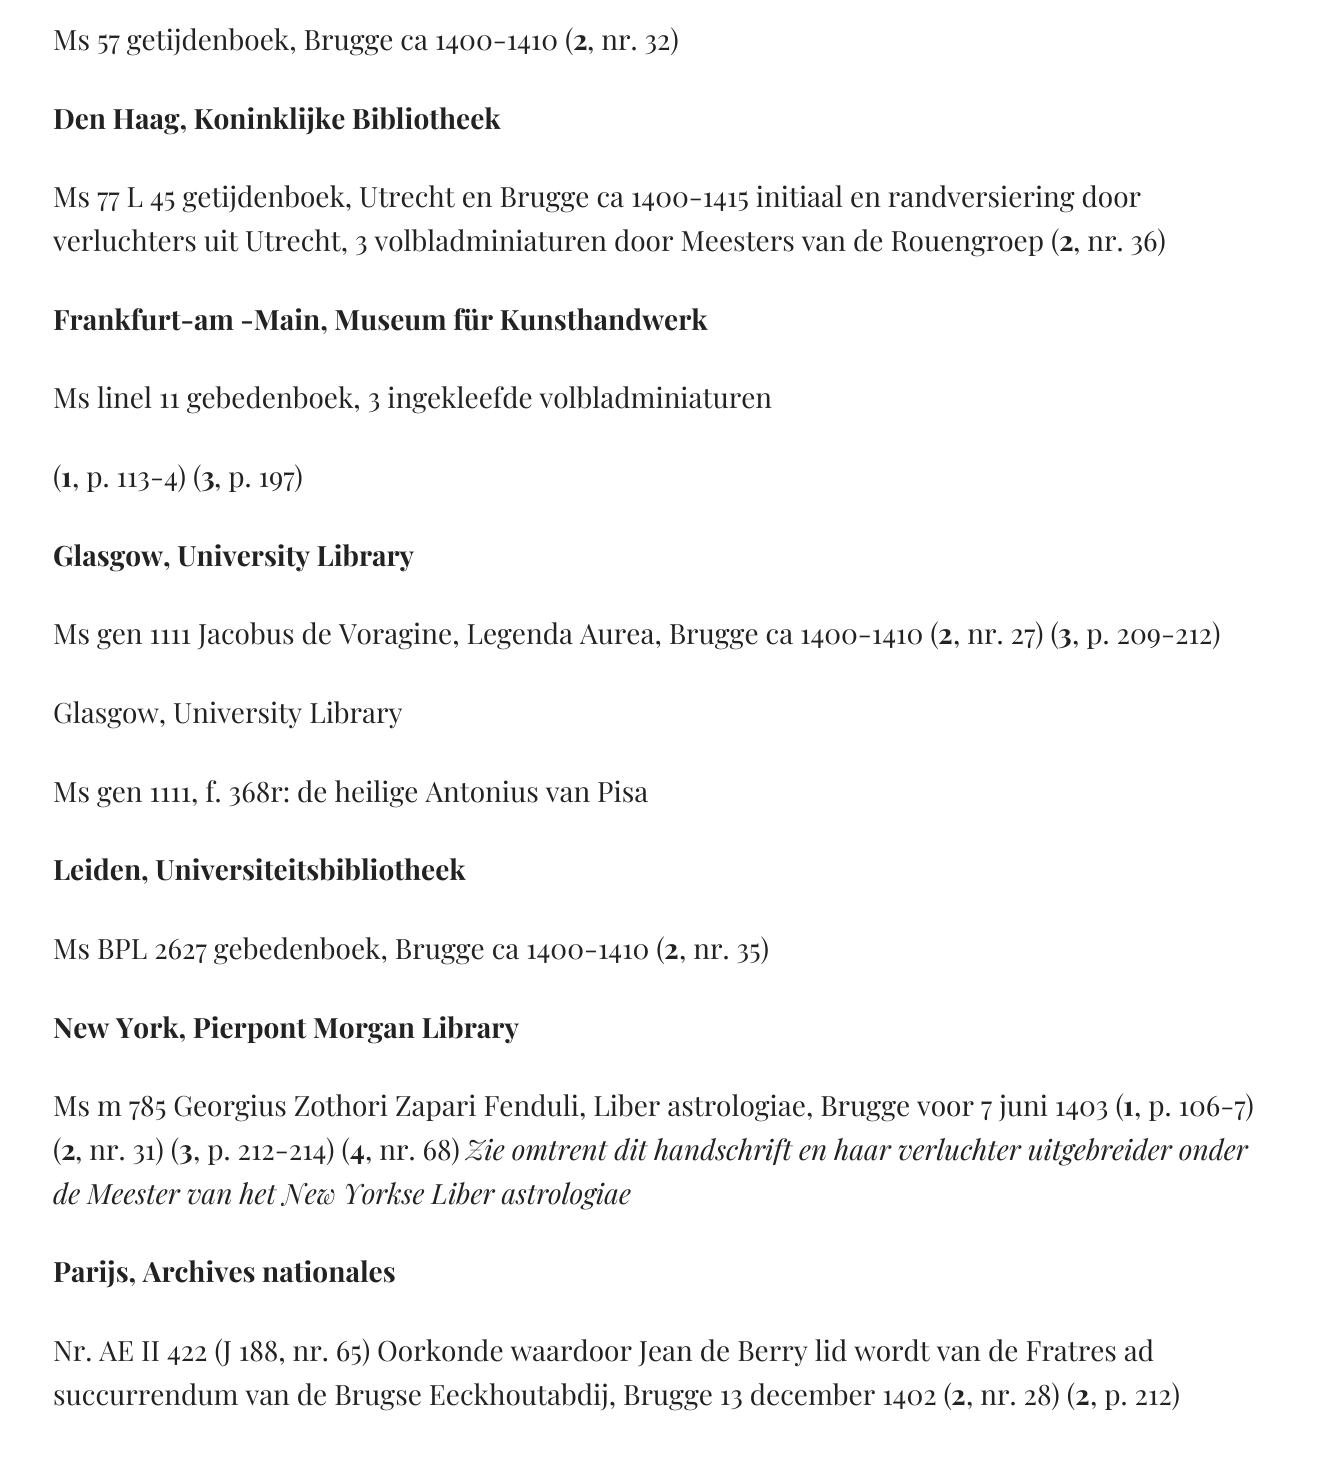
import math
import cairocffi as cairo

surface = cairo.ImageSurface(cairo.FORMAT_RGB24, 1322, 1474)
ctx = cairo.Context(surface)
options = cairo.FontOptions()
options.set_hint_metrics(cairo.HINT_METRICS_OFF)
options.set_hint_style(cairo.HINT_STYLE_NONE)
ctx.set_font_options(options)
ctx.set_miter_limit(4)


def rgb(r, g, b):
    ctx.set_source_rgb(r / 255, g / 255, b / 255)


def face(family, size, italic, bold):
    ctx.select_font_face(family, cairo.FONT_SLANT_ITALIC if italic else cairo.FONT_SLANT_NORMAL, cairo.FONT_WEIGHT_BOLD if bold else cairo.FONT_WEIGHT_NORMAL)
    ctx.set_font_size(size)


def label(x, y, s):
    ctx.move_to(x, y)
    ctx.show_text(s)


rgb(255, 255, 255)
ctx.paint()
face('Playfair Display', 28, 0, 0)
rgb(34, 34, 34)
label(53, 50, 'Ms 57 getijdenboek, Brugge ca 1400-1410 (')
face('Playfair Display', 28, 0, 1)
label(573, 50, '2')
face('Playfair Display', 28, 0, 0)
label(587, 50, ', nr. 32)')
face('Playfair Display', 28, 0, 1)
label(53, 129, 'Den Haag, Koninklijke Bibliotheek')
face('Playfair Display', 28, 0, 0)
label(53, 207, 'Ms 77 L 45 getijdenboek, Utrecht en Brugge ca 1400-1415 initiaal en randversiering door')
label(53, 251, 'verluchters uit Utrecht, 3 volbladminiaturen door Meesters van de Rouengroep (')
face('Playfair Display', 28, 0, 1)
label(1059, 251, '2')
face('Playfair Display', 28, 0, 0)
label(1073, 251, ', nr. 36)')
face('Playfair Display', 28, 0, 1)
label(53, 330, 'Frankfurt-am -Main, Museum für Kunsthandwerk')
face('Playfair Display', 28, 0, 0)
label(53, 408, 'Ms linel 11 gebedenboek, 3 ingekleefde volbladminiaturen')
label(53, 487, '(')
face('Playfair Display', 28, 0, 1)
label(61, 487, '1')
face('Playfair Display', 28, 0, 0)
label(72, 487, ', p. 113-4) (')
face('Playfair Display', 28, 0, 1)
label(201, 487, '3')
face('Playfair Display', 28, 0, 0)
label(214, 487, ', p. 197)')
face('Playfair Display', 28, 0, 1)
label(53, 566, 'Glasgow, University Library')
face('Playfair Display', 28, 0, 0)
label(53, 644, 'Ms gen 1111 Jacobus de Voragine, Legenda Aurea, Brugge ca 1400-1410 (')
face('Playfair Display', 28, 0, 1)
label(938, 644, '2')
face('Playfair Display', 28, 0, 0)
label(953, 644, ', nr. 27) (')
face('Playfair Display', 28, 0, 1)
label(1058, 644, '3')
face('Playfair Display', 28, 0, 0)
label(1072, 644, ', p. 209-212)')
label(53, 723, 'Glasgow, University Library')
label(53, 802, 'Ms gen 1111, f. 368r: de heilige Antonius van Pisa')
face('Playfair Display', 28, 0, 1)
label(53, 880, 'Leiden, Universiteitsbibliotheek')
face('Playfair Display', 28, 0, 0)
label(53, 959, 'Ms BPL 2627 gebedenboek, Brugge ca 1400-1410 (')
face('Playfair Display', 28, 0, 1)
label(664, 959, '2')
face('Playfair Display', 28, 0, 0)
label(679, 959, ', nr. 35)')
face('Playfair Display', 28, 0, 1)
label(53, 1038, 'New York, Pierpont Morgan Library')
face('Playfair Display', 28, 0, 0)
label(53, 1116, 'Ms m 785 Georgius Zothori Zapari Fenduli, Liber astrologiae, Brugge voor 7 juni 1403 (')
face('Playfair Display', 28, 0, 1)
label(1123, 1116, '1')
face('Playfair Display', 28, 0, 0)
label(1134, 1116, ', p. 106-7)')
label(53, 1160, '(')
face('Playfair Display', 28, 0, 1)
label(61, 1160, '2')
face('Playfair Display', 28, 0, 0)
label(75, 1160, ', nr. 31) (')
face('Playfair Display', 28, 0, 1)
label(179, 1160, '3')
face('Playfair Display', 28, 0, 0)
label(193, 1160, ', p. 212-214) (')
face('Playfair Display', 28, 0, 1)
label(350, 1160, '4')
face('Playfair Display', 28, 0, 0)
label(365, 1160, ', nr. 68)')
face('Playfair Display', 28, 1, 0)
label(466, 1160, 'Zie omtrent dit handschrift en haar verluchter uitgebreider onder')
label(53, 1204, 'de Meester van het New Yorkse Liber astrologiae')
face('Playfair Display', 28, 0, 1)
label(53, 1282, 'Parijs, Archives nationales')
face('Playfair Display', 28, 0, 0)
label(53, 1361, 'Nr. AE II 422 (J 188, nr. 65) Oorkonde waardoor Jean de Berry lid wordt van de Fratres ad')
label(53, 1405, 'succurrendum van de Brugse Eeckhoutabdij, Brugge 13 december 1402 (')
face('Playfair Display', 28, 0, 1)
label(951, 1405, '2')
face('Playfair Display', 28, 0, 0)
label(966, 1405, ', nr. 28) (')
face('Playfair Display', 28, 0, 1)
label(1075, 1405, '2')
face('Playfair Display', 28, 0, 0)
label(1090, 1405, ', p. 212)')
surface.write_to_png('render.png')
